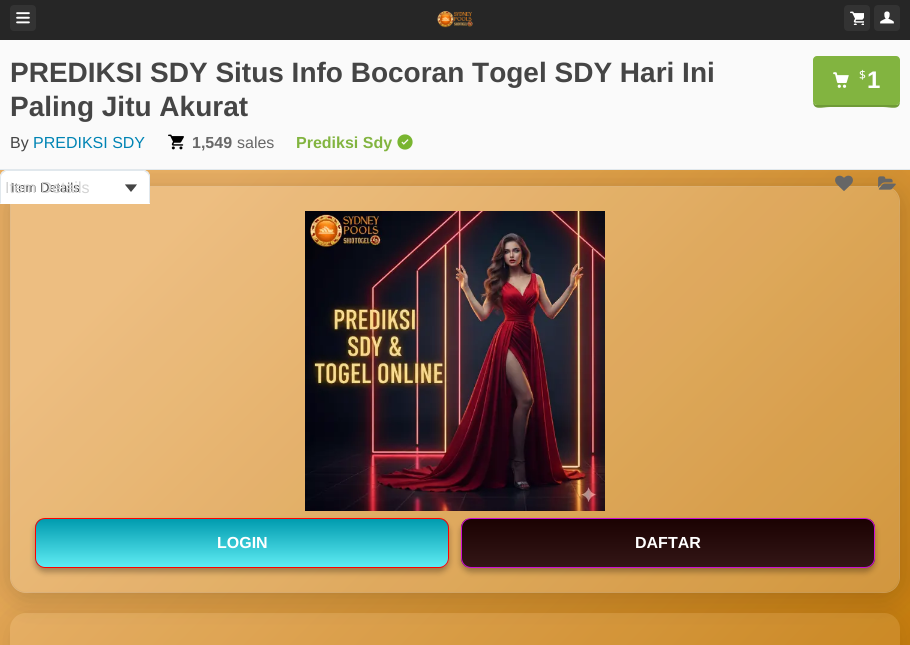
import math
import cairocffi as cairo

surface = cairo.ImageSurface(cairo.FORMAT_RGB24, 910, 645)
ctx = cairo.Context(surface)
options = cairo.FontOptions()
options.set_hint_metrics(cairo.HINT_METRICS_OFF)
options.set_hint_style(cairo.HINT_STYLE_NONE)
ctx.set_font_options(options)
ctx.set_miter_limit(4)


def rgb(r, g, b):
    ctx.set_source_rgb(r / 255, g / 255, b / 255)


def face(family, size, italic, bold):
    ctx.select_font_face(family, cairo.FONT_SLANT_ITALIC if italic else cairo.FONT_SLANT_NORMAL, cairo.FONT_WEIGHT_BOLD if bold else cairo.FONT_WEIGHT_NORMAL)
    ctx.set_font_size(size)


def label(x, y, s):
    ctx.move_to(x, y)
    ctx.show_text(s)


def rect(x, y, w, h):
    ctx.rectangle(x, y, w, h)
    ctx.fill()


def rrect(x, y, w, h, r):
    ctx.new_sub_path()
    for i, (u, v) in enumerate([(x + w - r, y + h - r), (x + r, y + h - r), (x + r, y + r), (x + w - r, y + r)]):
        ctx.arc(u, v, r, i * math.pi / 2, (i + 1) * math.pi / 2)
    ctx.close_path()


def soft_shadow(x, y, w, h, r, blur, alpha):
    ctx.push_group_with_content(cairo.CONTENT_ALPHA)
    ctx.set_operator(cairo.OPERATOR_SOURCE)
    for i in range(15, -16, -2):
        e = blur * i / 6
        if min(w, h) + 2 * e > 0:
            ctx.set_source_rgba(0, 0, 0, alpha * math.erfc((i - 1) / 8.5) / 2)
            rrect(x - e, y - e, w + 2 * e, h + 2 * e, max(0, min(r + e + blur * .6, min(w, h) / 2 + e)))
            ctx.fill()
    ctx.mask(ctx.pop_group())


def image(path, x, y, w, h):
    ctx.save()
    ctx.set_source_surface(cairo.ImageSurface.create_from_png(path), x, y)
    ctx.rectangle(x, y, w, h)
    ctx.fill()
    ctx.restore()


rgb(255, 255, 255)
ctx.paint()
gradient = cairo.LinearGradient(844, 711, 66, -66)
gradient.add_color_stop_rgba(0, 0.773, 0.486, 0.051, 1)
gradient.add_color_stop_rgba(0.74, 0.914, 0.686, 0.392, 1)
ctx.set_source(gradient)
rect(0, 170, 910, 475)
rgb(38, 38, 38)
rect(0, 0, 910, 40)
rgb(51, 51, 51)
rrect(10, 5, 26, 26, 4)
ctx.fill()
image('image0.png', 16, 12, 14, 12)
image('image1.png', 437, 11, 36, 17)
rrect(844, 5, 26, 26, 4)
ctx.fill()
image('image2.png', 850, 11, 14, 14)
rrect(874, 5, 26, 26, 4)
ctx.fill()
image('image3.png', 880, 11, 14, 13)
ctx.save()
ctx.set_fill_rule(cairo.FILL_RULE_EVEN_ODD)
ctx.new_path()
ctx.move_to(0, 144)
ctx.line_to(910, 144)
ctx.line_to(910, 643)
ctx.line_to(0, 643)
ctx.close_path()
ctx.move_to(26, 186)
ctx.line_to(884, 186)
ctx.curve_to(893, 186, 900, 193, 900, 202)
ctx.line_to(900, 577)
ctx.curve_to(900, 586, 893, 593, 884, 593)
ctx.line_to(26, 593)
ctx.curve_to(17, 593, 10, 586, 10, 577)
ctx.line_to(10, 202)
ctx.curve_to(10, 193, 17, 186, 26, 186)
ctx.close_path()
ctx.clip()
rgb(0, 0, 0)
soft_shadow(10, 190, 890, 407, 16, 15, 0.1)
ctx.restore()
ctx.set_source_rgba(1, 1, 1, 0.1)
rrect(10, 186, 890, 407, 16)
ctx.fill()
rrect(10.5, 186.5, 889, 406, 15.5)
ctx.set_source_rgba(1, 1, 1, 0.2)
ctx.set_line_width(1)
ctx.stroke()
ctx.save()
ctx.set_fill_rule(cairo.FILL_RULE_EVEN_ODD)
ctx.new_path()
ctx.move_to(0, 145)
ctx.line_to(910, 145)
ctx.line_to(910, 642)
ctx.line_to(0, 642)
ctx.close_path()
ctx.move_to(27, 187)
ctx.line_to(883, 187)
ctx.curve_to(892, 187, 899, 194, 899, 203)
ctx.line_to(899, 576)
ctx.curve_to(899, 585, 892, 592, 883, 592)
ctx.line_to(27, 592)
ctx.curve_to(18, 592, 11, 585, 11, 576)
ctx.line_to(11, 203)
ctx.curve_to(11, 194, 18, 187, 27, 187)
ctx.close_path()
ctx.clip()
rgb(0, 0, 0)
soft_shadow(11, 191, 888, 405, 16, 15, 0.1)
ctx.restore()
rgb(250, 250, 250)
rect(0, 40, 910, 129)
rgb(225, 232, 237)
rect(0, 169, 910, 1)
face('Liberation Sans', 28, 0, 1)
rgb(69, 69, 69)
label(10, 82, 'PREDIKSI SDY Situs Info Bocoran Togel SDY Hari Ini')
label(10, 116, 'Paling Jitu Akurat')
rgb(111, 154, 55)
ctx.new_path()
ctx.move_to(813, 101)
ctx.curve_to(813, 111, 822, 107, 830, 107)
ctx.line_to(883, 107)
ctx.curve_to(891, 107, 900, 111, 900, 101)
ctx.curve_to(900, 103, 898, 105, 896, 105)
ctx.line_to(817, 105)
ctx.curve_to(815, 105, 813, 103, 813, 101)
ctx.close_path()
ctx.fill()
rgb(130, 180, 64)
rrect(813, 56, 87, 49, 4)
ctx.fill()
image('image4.png', 833, 72, 16, 16)
face('Noto Sans', 12, 0, 0)
rgb(255, 255, 255)
label(859, 79, '$')
face('Liberation Sans', 24, 0, 1)
label(867, 88, '1')
face('Liberation Sans', 16, 0, 0)
rgb(69, 69, 69)
label(10, 148, 'By')
rgb(0, 132, 180)
label(33, 148, 'PREDIKSI SDY')
image('image5.png', 168, 134, 16, 16)
face('Liberation Sans', 16, 0, 1)
rgb(104, 104, 104)
label(192, 148, '1,549')
face('Liberation Sans', 16, 0, 0)
label(237, 148, 'sales')
face('Liberation Sans', 16, 0, 1)
rgb(130, 180, 64)
label(296, 148, 'Prediksi Sdy')
image('image6.png', 397, 134, 16, 16)
ctx.set_source_rgba(1, 1, 1, 0.1)
rrect(11, 187, 888, 405, 16)
ctx.fill()
rgb(255, 255, 255)
ctx.new_path()
ctx.move_to(7, 170)
ctx.line_to(143, 170)
ctx.curve_to(147, 170, 150, 173, 150, 177)
ctx.line_to(150, 204)
ctx.line_to(0, 204)
ctx.line_to(0, 177)
ctx.curve_to(0, 173, 3, 170, 7, 170)
ctx.close_path()
ctx.fill()
image('image7.png', 125, 184, 12, 8)
ctx.new_path()
ctx.move_to(137, 185)
ctx.line_to(141, 189)
ctx.line_to(145, 185)
ctx.set_line_width(2)
ctx.stroke()
face('Liberation Sans', 13, 0, 0)
rgb(69, 69, 69)
label(11, 192, 'Item Details')
face('Liberation Sans', 16, 0, 0)
rgb(211, 211, 211)
label(5, 193, 'Item Details')
rgb(225, 232, 237)
ctx.new_path()
ctx.move_to(7, 170)
ctx.curve_to(5, 170, 3, 171, 2, 172)
ctx.line_to(3, 173)
ctx.line_to(6, 171)
ctx.line_to(144, 171)
ctx.line_to(147, 173)
ctx.line_to(148, 172)
ctx.curve_to(147, 171, 145, 170, 143, 170)
ctx.close_path()
ctx.fill()
ctx.new_path()
ctx.move_to(150, 204)
ctx.line_to(150, 177)
ctx.curve_to(150, 175, 149, 173, 148, 172)
ctx.line_to(147, 173)
ctx.curve_to(148, 174, 149, 175.5, 149, 177)
ctx.line_to(149, 203)
ctx.close_path()
ctx.fill()
rgb(255, 255, 255)
ctx.new_path()
ctx.move_to(150, 204)
ctx.line_to(149, 203)
ctx.line_to(1, 203)
ctx.line_to(0, 204)
ctx.close_path()
ctx.fill()
rgb(225, 232, 237)
ctx.new_path()
ctx.move_to(0, 204)
ctx.line_to(1, 203)
ctx.line_to(1, 177)
ctx.curve_to(1, 175.5, 2, 174, 3, 173)
ctx.line_to(2, 172)
ctx.curve_to(1, 173, 0, 175, 0, 177)
ctx.close_path()
ctx.fill()
image('image8.png', 835, 175, 18, 16)
image('image9.png', 878, 176, 18, 14)
image('image10.png', 305, 211, 300, 300)
rgb(0, 0, 0)
soft_shadow(35, 522, 414, 50, 10, 3, 0.3)
ctx.save()
rrect(35, 518, 414, 50, 10)
ctx.clip()
gradient = cairo.LinearGradient(242, 519, 242, 567)
gradient.add_color_stop_rgba(0, 0, 0.608, 0.686, 1)
gradient.add_color_stop_rgba(1, 0.373, 0.925, 0.953, 1)
ctx.set_source(gradient)
rect(35, 519, 414, 48)
ctx.restore()
rrect(35.5, 518.5, 413, 49, 9.5)
rgb(255, 0, 0)
ctx.set_line_width(1)
ctx.stroke()
face('Liberation Sans', 16, 0, 1)
rgb(255, 255, 255)
label(217, 548, 'LOGIN')
rgb(0, 0, 0)
soft_shadow(461, 522, 414, 50, 10, 3, 0.3)
ctx.save()
rrect(461, 518, 414, 50, 10)
ctx.clip()
gradient = cairo.LinearGradient(668, 519, 668, 567)
gradient.add_color_stop_rgba(0, 0.106, 0.008, 0.008, 1)
gradient.add_color_stop_rgba(1, 0.2, 0.086, 0.086, 1)
ctx.set_source(gradient)
rect(461, 519, 414, 48)
ctx.restore()
rrect(461.5, 518.5, 413, 49, 9.5)
rgb(204, 15, 211)
ctx.stroke()
rgb(255, 255, 255)
label(635, 548, 'DAFTAR')
ctx.save()
ctx.set_fill_rule(cairo.FILL_RULE_EVEN_ODD)
ctx.new_path()
ctx.move_to(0, 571)
ctx.line_to(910, 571)
ctx.line_to(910, 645)
ctx.line_to(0, 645)
ctx.close_path()
ctx.move_to(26, 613)
ctx.line_to(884, 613)
ctx.curve_to(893, 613, 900, 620, 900, 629)
ctx.line_to(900, 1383)
ctx.curve_to(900, 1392, 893, 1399, 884, 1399)
ctx.line_to(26, 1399)
ctx.curve_to(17, 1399, 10, 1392, 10, 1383)
ctx.line_to(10, 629)
ctx.curve_to(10, 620, 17, 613, 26, 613)
ctx.close_path()
ctx.clip()
rgb(0, 0, 0)
soft_shadow(10, 617, 890, 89, 16, 15, 0.1)
ctx.restore()
ctx.set_source_rgba(1, 1, 1, 0.1)
rrect(10, 613, 890, 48, 16)
ctx.fill()
surface.write_to_png('render.png')
